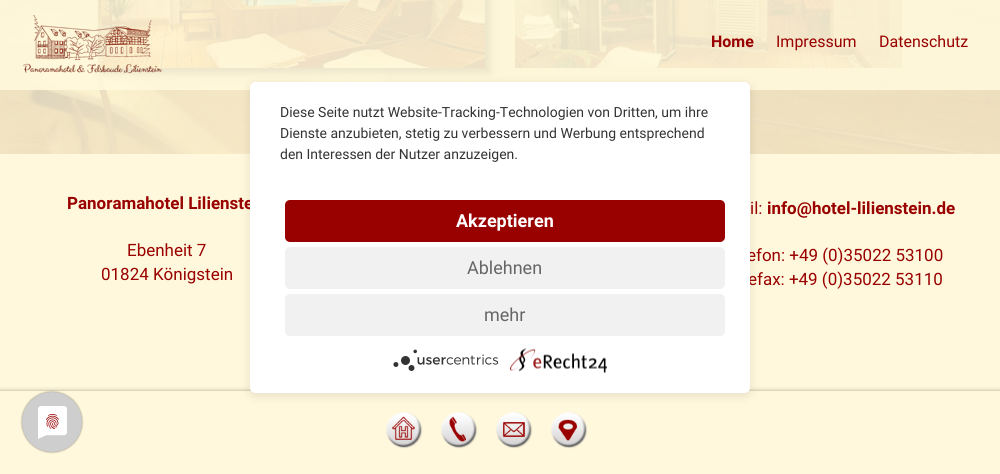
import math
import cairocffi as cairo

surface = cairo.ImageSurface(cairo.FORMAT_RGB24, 1000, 474)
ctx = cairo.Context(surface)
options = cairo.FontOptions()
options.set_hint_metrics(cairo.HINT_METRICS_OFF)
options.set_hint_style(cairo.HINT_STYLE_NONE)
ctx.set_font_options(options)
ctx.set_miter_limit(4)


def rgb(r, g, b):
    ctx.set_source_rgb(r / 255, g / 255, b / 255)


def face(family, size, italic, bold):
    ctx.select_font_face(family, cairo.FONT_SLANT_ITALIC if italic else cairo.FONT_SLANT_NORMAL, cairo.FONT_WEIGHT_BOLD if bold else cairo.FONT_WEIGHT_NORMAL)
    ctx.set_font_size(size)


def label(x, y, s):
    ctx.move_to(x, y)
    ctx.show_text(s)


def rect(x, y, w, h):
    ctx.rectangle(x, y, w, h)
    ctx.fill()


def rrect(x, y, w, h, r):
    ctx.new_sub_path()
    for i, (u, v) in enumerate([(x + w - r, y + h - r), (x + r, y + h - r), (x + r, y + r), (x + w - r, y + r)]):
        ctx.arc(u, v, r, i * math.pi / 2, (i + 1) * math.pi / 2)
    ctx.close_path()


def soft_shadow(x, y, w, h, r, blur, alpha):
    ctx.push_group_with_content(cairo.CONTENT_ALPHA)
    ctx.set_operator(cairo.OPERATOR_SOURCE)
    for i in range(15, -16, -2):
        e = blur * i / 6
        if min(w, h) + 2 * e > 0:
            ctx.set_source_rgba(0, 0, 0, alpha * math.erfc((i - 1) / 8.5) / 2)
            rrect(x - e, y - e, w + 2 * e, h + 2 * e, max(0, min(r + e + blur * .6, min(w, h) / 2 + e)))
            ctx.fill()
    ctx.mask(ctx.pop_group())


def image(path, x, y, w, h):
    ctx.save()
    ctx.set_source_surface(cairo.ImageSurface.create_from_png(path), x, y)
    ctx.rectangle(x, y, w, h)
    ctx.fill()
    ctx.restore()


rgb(255, 255, 255)
ctx.paint()
image('image0.png', 0, 0, 1000, 154)
ctx.set_source_rgba(1, 0.973, 0.863, 0.85)
rect(0, 0, 1000, 154)
rgb(51, 51, 51)
soft_shadow(103, -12, 387, 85, 0, 4, 1)
image('image5.png', 98, 0, 387, 68)
image('image6.png', 515, 0, 387, 68)
ctx.set_source_rgba(1, 0.973, 0.863, 0.9)
rect(0, 0, 1000, 90)
image('image1.png', 23, 15, 139, 59)
face('Roboto', 16, 0, 1)
rgb(153, 0, 0)
label(711, 47, 'Home')
face('Roboto', 16, 0, 0)
label(776, 47, 'Impressum')
label(879, 47, 'Datenschutz')
rgb(255, 248, 220)
rect(0, 154, 1000, 237)
rgb(0, 0, 0)
soft_shadow(0, 392, 1000, 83, 0, 2.5, 0.5)
rgb(255, 248, 220)
rect(0, 391, 1000, 83)
rgb(0, 0, 0)
soft_shadow(250, 85, 500, 311, 5, 5, 0.1)
image('image7.png', 386, 412, 37, 37)
image('image8.png', 441, 412, 37, 37)
image('image9.png', 496, 412, 37, 37)
image('image10.png', 551, 412, 37, 37)
ctx.save()
rrect(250, 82, 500, 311, 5)
ctx.clip()
soft_shadow(250, 88, 500, 311, 0, 18, 0.3)
ctx.restore()
face('Roboto', 17, 0, 1)
rgb(153, 0, 0)
label(67, 209, 'Panoramahotel Lilienste')
face('Roboto', 17, 0, 0)
label(747, 261, 'efon: +49 (0)35022 53100')
label(748, 285, 'efax: +49 (0)35022 53110')
rgb(255, 255, 255)
rrect(250, 82, 500, 311, 5)
ctx.fill()
face('Roboto', 14, 0, 0)
rgb(51, 51, 51)
label(280, 117, 'Diese Seite nutzt Website-Tracking-Technologien von Dritten, um ihre')
label(280, 138, 'Dienste anzubieten, stetig zu verbessern und Werbung entsprechend')
label(280, 159, 'den Interessen der Nutzer anzuzeigen.')
rgb(153, 0, 0)
rrect(285, 200, 440, 42, 5)
ctx.fill()
face('Roboto', 18, 0, 1)
rgb(255, 255, 255)
label(456, 227, 'Akzeptieren')
rgb(241, 241, 241)
rrect(285, 247, 440, 42, 5)
ctx.fill()
face('Roboto', 18, 0, 0)
rgb(102, 102, 102)
label(467, 274, 'Ablehnen')
rgb(241, 241, 241)
rrect(285, 294, 440, 42, 5)
ctx.fill()
rgb(102, 102, 102)
label(484, 321, 'mehr')
image('image2.png', 393, 349, 106, 22)
image('image3.png', 510, 348, 97, 25)
image('image4.png', 20, 390, 64, 64)
face('Roboto', 17, 0, 0)
rgb(153, 0, 0)
label(127, 256, 'Ebenheit 7')
label(101, 280, '01824 Königstein')
label(750, 214, 'il:')
face('Roboto', 17, 0, 1)
label(767, 214, 'info@hotel-lilienstein.de')
surface.write_to_png('render.png')
